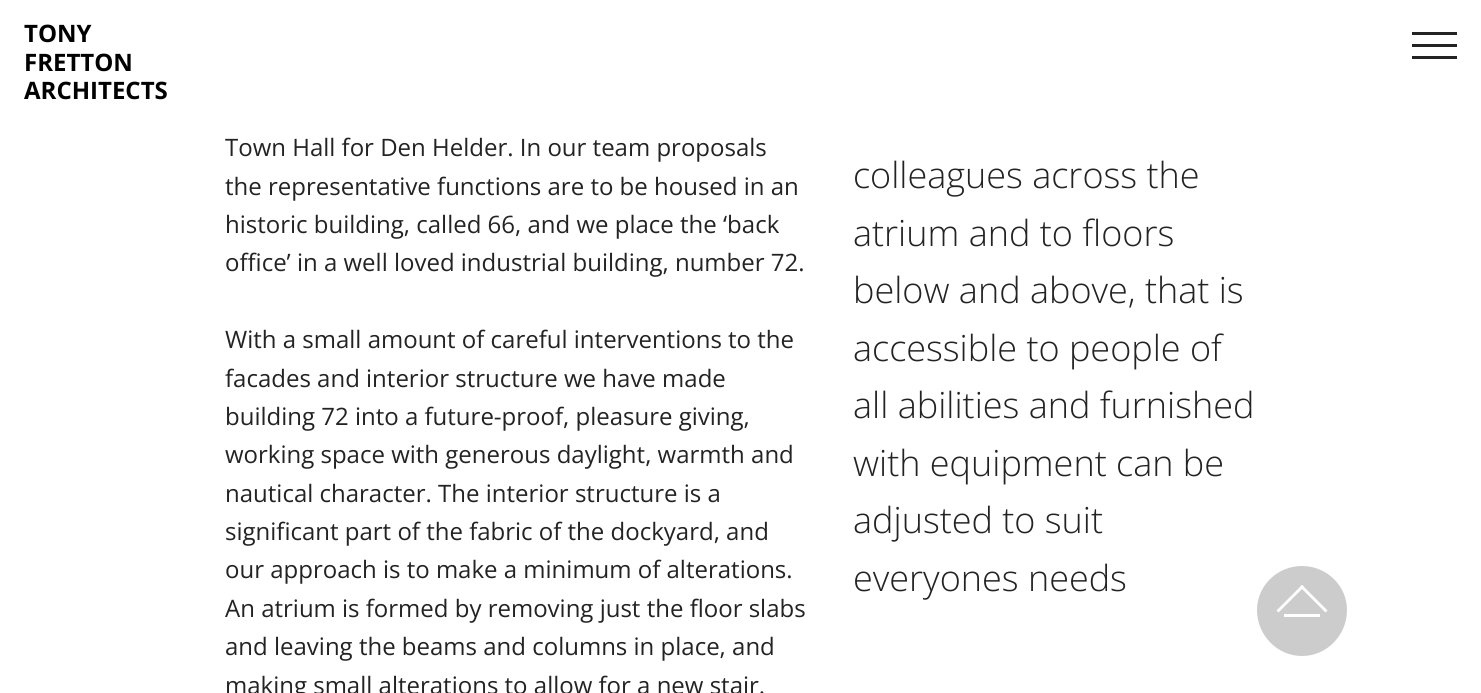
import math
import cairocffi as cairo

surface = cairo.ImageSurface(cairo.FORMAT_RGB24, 1481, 693)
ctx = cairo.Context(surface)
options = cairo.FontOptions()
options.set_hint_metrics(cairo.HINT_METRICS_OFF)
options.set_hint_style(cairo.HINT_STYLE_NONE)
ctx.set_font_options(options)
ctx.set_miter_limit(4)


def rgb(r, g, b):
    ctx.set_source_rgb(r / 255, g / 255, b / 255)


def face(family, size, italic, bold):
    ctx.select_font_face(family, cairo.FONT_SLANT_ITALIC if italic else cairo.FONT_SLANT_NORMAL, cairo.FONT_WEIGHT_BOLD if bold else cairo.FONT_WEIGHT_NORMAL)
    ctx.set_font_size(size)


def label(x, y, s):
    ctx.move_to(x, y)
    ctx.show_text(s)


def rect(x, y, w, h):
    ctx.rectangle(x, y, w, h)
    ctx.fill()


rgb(255, 255, 255)
ctx.paint()
face('Open Sans', 24, 0, 1)
rgb(0, 0, 0)
label(24, 42, 'TONY')
label(24, 71, 'FRETTON')
label(24, 99, 'ARCHITECTS')
rgb(35, 35, 35)
rect(1412, 32, 45, 3)
rect(1412, 44, 45, 3)
rect(1412, 56, 45, 3)
face('Open Sans', 24, 0, 0)
label(225, 156, 'Town Hall for Den Helder. In our team proposals')
label(225, 195, 'the representative functions are to be housed in an')
label(225, 233, 'historic building, called 66, and we place the ‘back')
label(225, 271, 'office’ in a well loved industrial building, number 72.')
label(225, 348, 'With a small amount of careful interventions to the')
label(225, 387, 'facades and interior structure we have made')
label(225, 425, 'building 72 into a future-proof, pleasure giving,')
label(225, 463, 'working space with generous daylight, warmth and')
label(225, 502, 'nautical character. The interior structure is a')
label(225, 540, 'significant part of the fabric of the dockyard, and')
label(225, 578, 'our approach is to make a minimum of alterations.')
label(225, 617, 'An atrium is formed by removing just the floor slabs')
label(225, 655, 'and leaving the beams and columns in place, and')
label(225, 694, 'making small alterations to allow for a new stair.')
face('Open Sans Light', 36, 0, 0)
label(853, 188, 'colleagues across the')
label(853, 246, 'atrium and to floors')
label(853, 303, 'below and above, that is')
label(853, 361, 'accessible to people of')
label(853, 418, 'all abilities and furnished')
label(853, 476, 'with equipment can be')
label(853, 533, 'adjusted to suit')
label(853, 591, 'everyones needs')
rgb(204, 204, 204)
ctx.new_path()
ctx.move_to(1302, 656)
ctx.curve_to(1277, 656, 1257, 635, 1257, 610)
ctx.curve_to(1257, 586, 1277, 566, 1302, 566)
ctx.curve_to(1327, 566, 1347, 586, 1347, 610)
ctx.curve_to(1347, 635, 1327, 656, 1302, 656)
ctx.close_path()
ctx.fill()
rgb(255, 255, 255)
ctx.new_path()
ctx.move_to(1276.5, 610.5)
ctx.line_to(1302, 585)
ctx.line_to(1304, 587)
ctx.line_to(1278.5, 612.5)
ctx.close_path()
ctx.fill()
ctx.new_path()
ctx.move_to(1300, 587)
ctx.line_to(1302, 585)
ctx.line_to(1327.5, 610.5)
ctx.line_to(1325.5, 612.5)
ctx.close_path()
ctx.fill()
rect(1284, 614, 36, 3)
surface.write_to_png('render.png')
